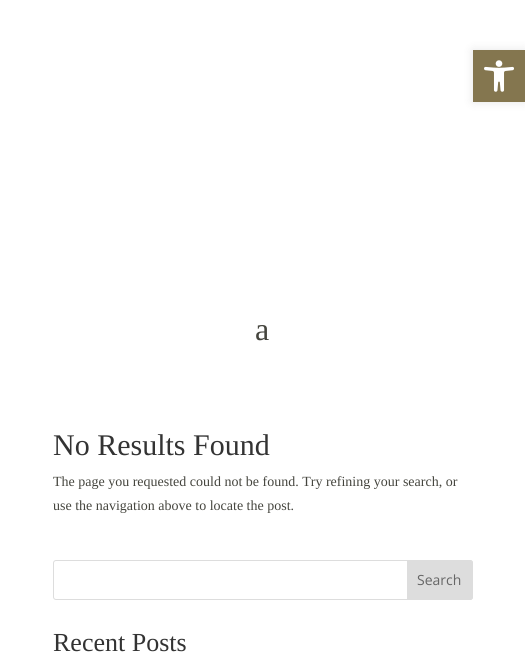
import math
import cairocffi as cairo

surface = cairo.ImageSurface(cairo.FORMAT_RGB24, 525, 666)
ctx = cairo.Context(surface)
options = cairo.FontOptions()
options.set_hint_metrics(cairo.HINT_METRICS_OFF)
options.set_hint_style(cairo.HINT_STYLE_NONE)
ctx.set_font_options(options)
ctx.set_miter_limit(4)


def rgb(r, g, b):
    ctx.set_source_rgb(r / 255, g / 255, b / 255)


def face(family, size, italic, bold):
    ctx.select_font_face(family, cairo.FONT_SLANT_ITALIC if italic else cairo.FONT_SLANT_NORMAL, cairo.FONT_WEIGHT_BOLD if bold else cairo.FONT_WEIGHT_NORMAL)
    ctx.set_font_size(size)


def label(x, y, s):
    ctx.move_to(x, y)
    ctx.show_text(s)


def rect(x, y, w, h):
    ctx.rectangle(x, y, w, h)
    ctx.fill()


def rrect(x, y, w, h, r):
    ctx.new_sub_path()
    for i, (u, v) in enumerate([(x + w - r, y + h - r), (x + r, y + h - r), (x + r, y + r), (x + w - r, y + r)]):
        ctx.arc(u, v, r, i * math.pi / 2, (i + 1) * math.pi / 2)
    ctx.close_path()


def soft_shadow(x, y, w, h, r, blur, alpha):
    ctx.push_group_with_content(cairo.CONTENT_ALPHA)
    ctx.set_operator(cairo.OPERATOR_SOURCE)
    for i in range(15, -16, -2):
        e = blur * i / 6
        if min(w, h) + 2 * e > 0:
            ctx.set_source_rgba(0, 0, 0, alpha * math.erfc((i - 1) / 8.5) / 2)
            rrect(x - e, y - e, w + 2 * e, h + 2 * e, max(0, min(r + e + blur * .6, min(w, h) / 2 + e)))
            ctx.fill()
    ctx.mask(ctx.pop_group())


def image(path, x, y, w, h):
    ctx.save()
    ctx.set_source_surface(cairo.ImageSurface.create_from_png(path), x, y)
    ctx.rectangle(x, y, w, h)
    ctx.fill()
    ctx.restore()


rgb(255, 255, 255)
ctx.paint()
rgb(0, 0, 0)
soft_shadow(473, 50, 52, 52, 0, 5, 0.1)
rgb(132, 118, 79)
rect(473, 50, 52, 52)
image('image0.png', 484, 60, 30, 32)
face('Liberation Serif', 32, 0, 0)
rgb(69, 69, 62)
label(255, 340, 'a')
face('Liberation Serif', 30, 0, 0)
rgb(51, 51, 51)
label(53, 455, 'No Results Found')
face('Liberation Serif', 14, 0, 0)
rgb(69, 69, 62)
label(53, 486, 'The page you requested could not be found. Try refining your search, or')
label(53, 510, 'use the navigation above to locate the post.')
rrect(53.5, 560.5, 419, 39, 2.5)
rgb(221, 221, 221)
ctx.set_line_width(1)
ctx.stroke()
ctx.new_path()
ctx.move_to(407.5, 560.5)
ctx.line_to(470, 560.5)
ctx.curve_to(471.5, 560.5, 472.5, 561.5, 472.5, 563)
ctx.line_to(472.5, 597)
ctx.curve_to(472.5, 598.5, 471.5, 599.5, 470, 599.5)
ctx.line_to(407.5, 599.5)
ctx.close_path()
ctx.fill_preserve()
ctx.stroke()
face('Open Sans', 14, 0, 0)
rgb(102, 102, 102)
label(417, 585, 'Search')
face('Liberation Serif', 26, 0, 0)
rgb(51, 51, 51)
label(53, 651, 'Recent Posts')
surface.write_to_png('render.png')
